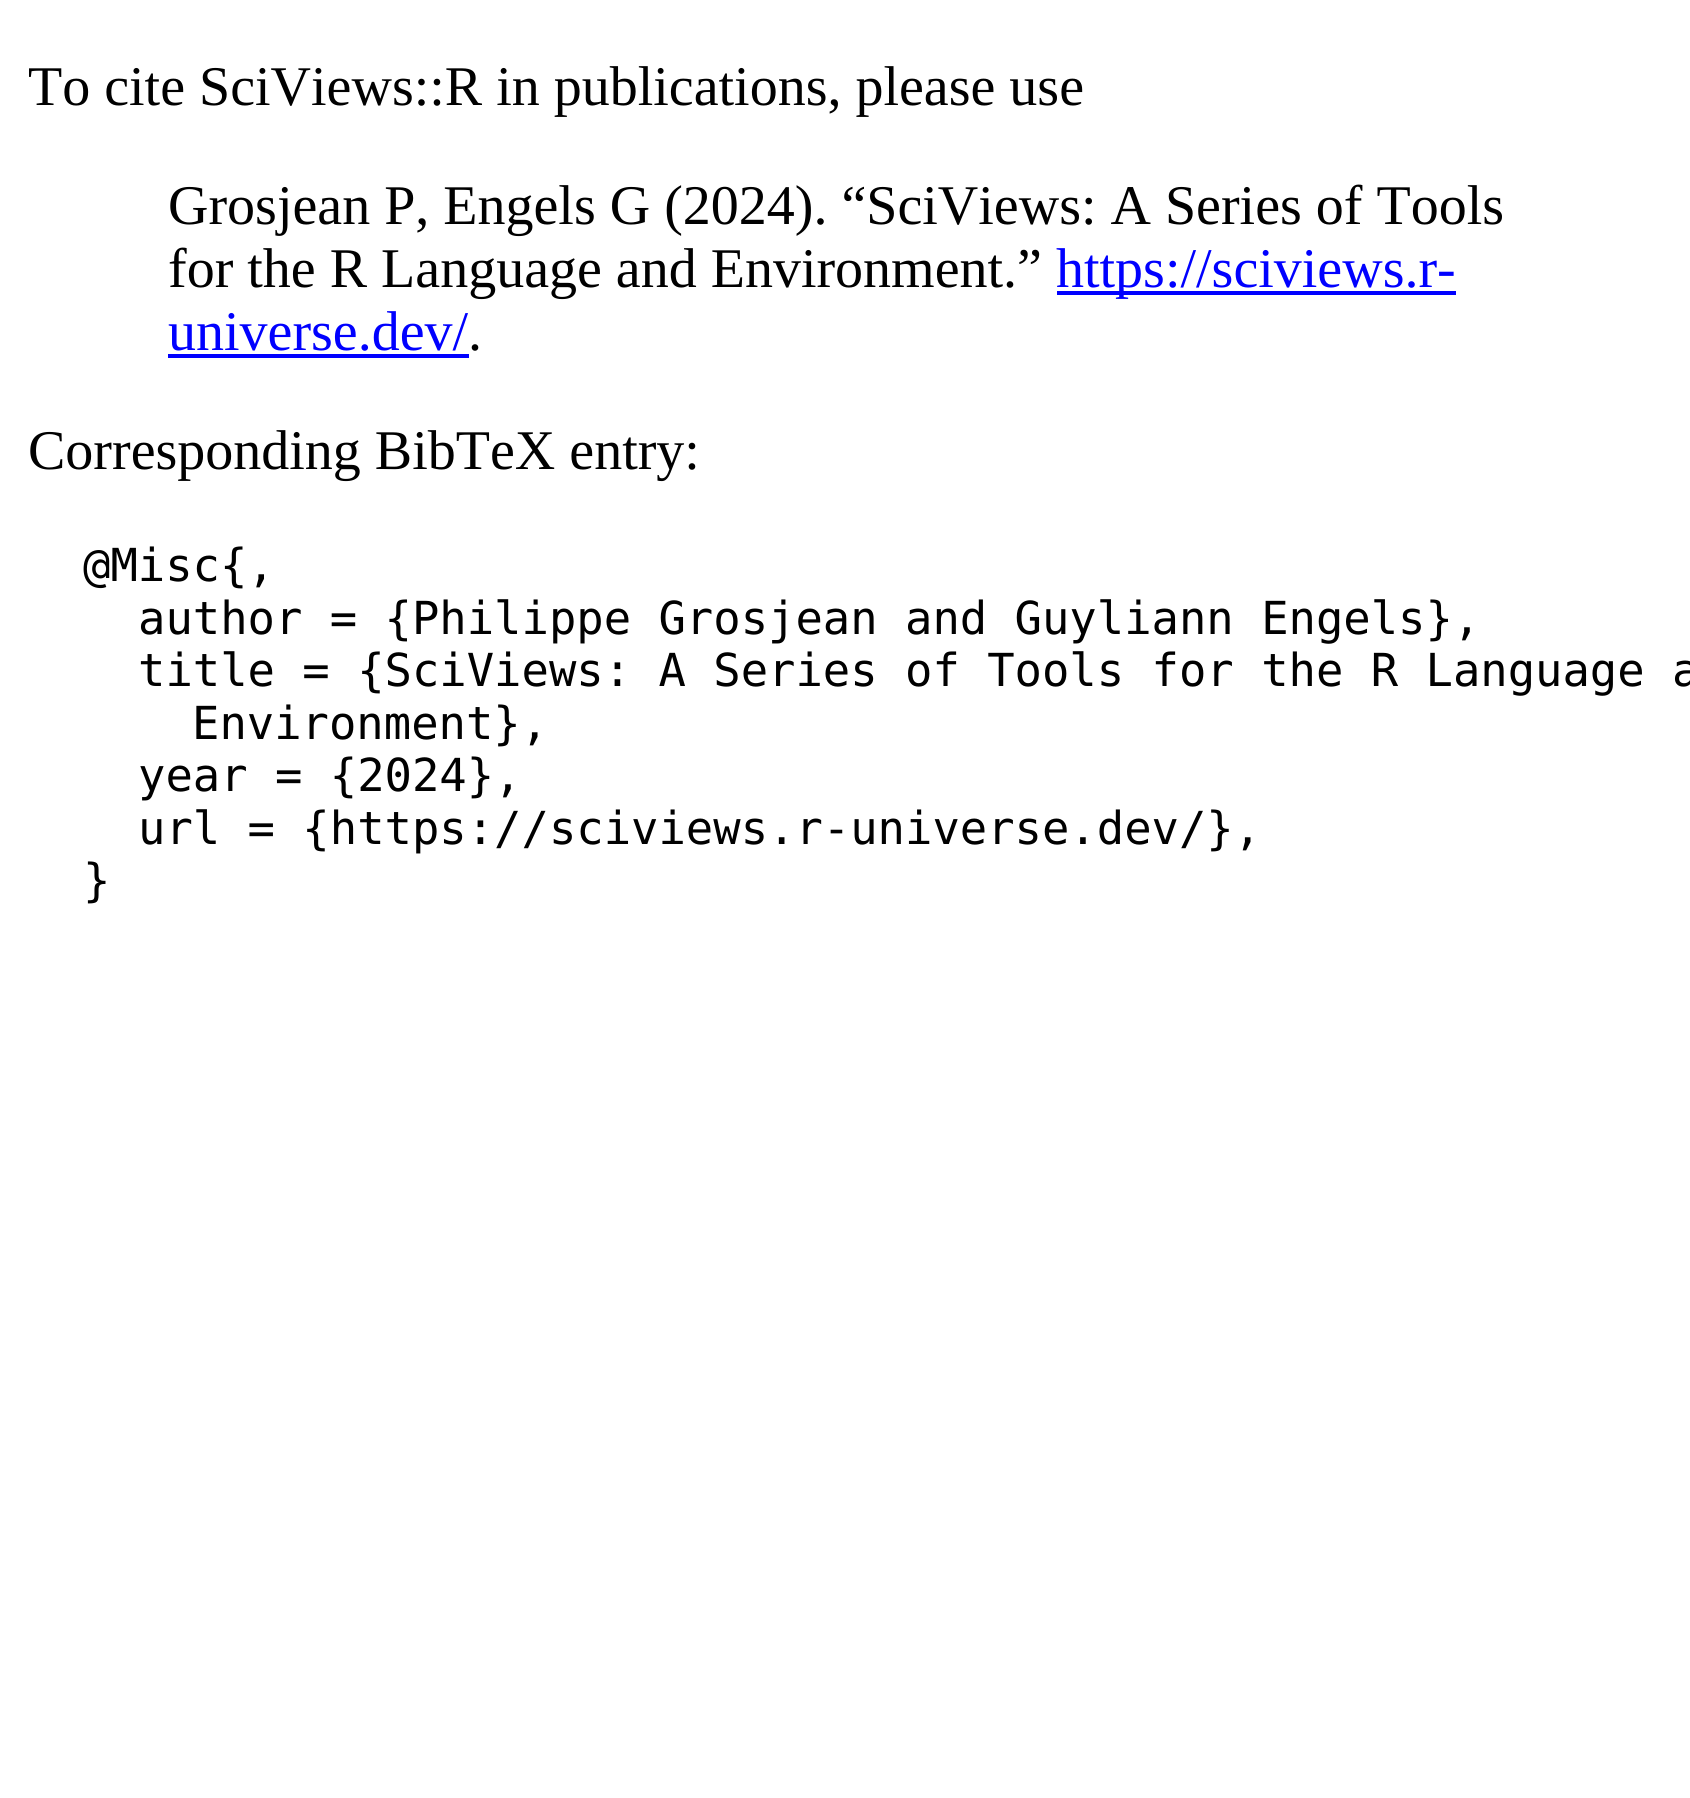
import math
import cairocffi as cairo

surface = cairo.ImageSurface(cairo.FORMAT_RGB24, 1690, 1798)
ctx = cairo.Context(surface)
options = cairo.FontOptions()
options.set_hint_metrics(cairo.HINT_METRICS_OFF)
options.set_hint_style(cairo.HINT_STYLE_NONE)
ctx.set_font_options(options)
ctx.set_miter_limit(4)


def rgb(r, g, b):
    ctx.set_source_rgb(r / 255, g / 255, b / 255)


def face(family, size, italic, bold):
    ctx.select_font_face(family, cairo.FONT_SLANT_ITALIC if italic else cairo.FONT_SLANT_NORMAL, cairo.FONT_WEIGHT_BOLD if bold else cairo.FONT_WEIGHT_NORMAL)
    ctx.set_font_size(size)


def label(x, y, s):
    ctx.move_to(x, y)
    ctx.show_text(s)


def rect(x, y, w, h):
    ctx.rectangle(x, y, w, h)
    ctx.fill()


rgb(255, 255, 255)
ctx.paint()
face('Liberation Serif', 56, 0, 0)
rgb(0, 0, 0)
label(28, 105, 'To cite SciViews::R in publications, please use')
label(168, 224, 'Grosjean P, Engels G (2024). “SciViews: A Series of Tools')
label(168, 287, 'for the R Language and Environment.”')
rgb(0, 0, 255)
rect(1057, 291, 399, 4)
label(1056, 287, 'https://sciviews.r-')
label(168, 350, 'universe.dev/')
rect(168, 354, 301, 4)
rgb(0, 0, 0)
label(468, 350, '.')
label(28, 469, 'Corresponding BibTeX entry:')
face('DejaVu Sans Mono', 45.5, 0, 0)
label(83, 581, '@Misc{,')
label(138, 634, 'author = {Philippe Grosjean and Guyliann Engels},')
label(138, 686, 'title = {SciViews: A Series of Tools for the R Language a')
label(192, 739, 'Environment},')
label(138, 791, 'year = {2024},')
label(138, 844, 'url = {https://sciviews.r-universe.dev/},')
label(83, 896, '}')
surface.write_to_png('render.png')
